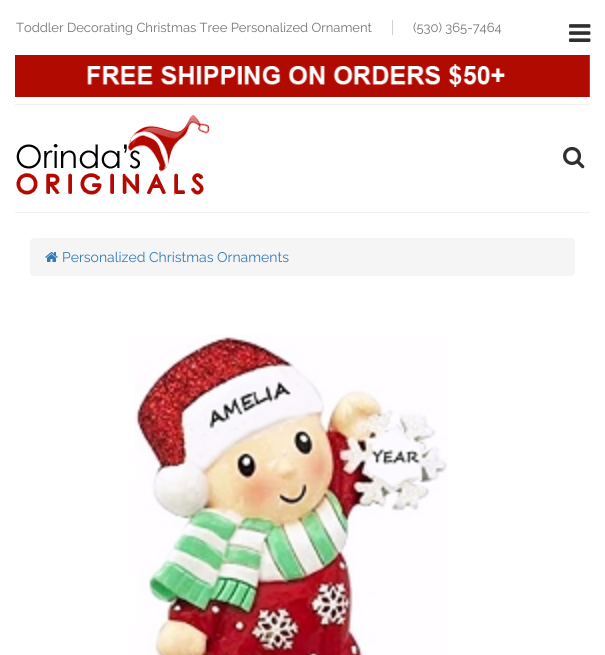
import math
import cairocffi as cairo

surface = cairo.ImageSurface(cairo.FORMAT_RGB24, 605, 655)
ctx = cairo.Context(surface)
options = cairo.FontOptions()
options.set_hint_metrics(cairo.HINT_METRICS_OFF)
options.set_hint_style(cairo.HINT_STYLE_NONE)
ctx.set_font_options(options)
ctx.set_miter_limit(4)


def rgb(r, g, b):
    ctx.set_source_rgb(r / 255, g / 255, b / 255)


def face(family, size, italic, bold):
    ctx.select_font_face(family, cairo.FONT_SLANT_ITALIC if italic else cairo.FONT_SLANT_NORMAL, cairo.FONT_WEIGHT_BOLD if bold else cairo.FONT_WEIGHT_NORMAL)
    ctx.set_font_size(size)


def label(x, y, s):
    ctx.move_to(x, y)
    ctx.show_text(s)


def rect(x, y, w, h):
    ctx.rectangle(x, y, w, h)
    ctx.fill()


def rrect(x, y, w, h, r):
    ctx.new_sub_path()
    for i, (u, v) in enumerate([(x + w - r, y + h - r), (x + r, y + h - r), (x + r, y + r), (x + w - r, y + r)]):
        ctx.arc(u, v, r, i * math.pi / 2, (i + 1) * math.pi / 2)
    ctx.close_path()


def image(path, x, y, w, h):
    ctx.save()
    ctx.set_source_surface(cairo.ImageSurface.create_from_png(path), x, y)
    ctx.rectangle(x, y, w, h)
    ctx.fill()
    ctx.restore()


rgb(255, 255, 255)
ctx.paint()
rgb(240, 240, 240)
rect(15, 104, 575, 1)
face('Raleway', 13, 0, 0)
rgb(116, 116, 116)
label(16, 32, 'Toddler Decorating Christmas Tree Personalized Ornament')
rgb(208, 208, 208)
rect(392, 20, 1, 15)
rgb(116, 116, 116)
label(413, 32, '(530) 365-7464')
image('image0.png', 569, 24, 22, 18)
image('image1.png', 15, 55, 575, 42)
rgb(240, 240, 240)
rect(15, 212, 575, 1)
image('image2.png', 16, 115, 194, 80)
image('image3.png', 563, 146, 22, 23)
rgb(245, 245, 245)
rrect(30, 238, 545, 38, 4)
ctx.fill()
image('image4.png', 45, 252, 13, 10)
face('Raleway', 14, 0, 0)
rgb(51, 122, 183)
label(62, 262, 'Personalized Christmas Ornaments')
image('image5.png', 135, 335, 313, 320)
surface.write_to_png('render.png')
